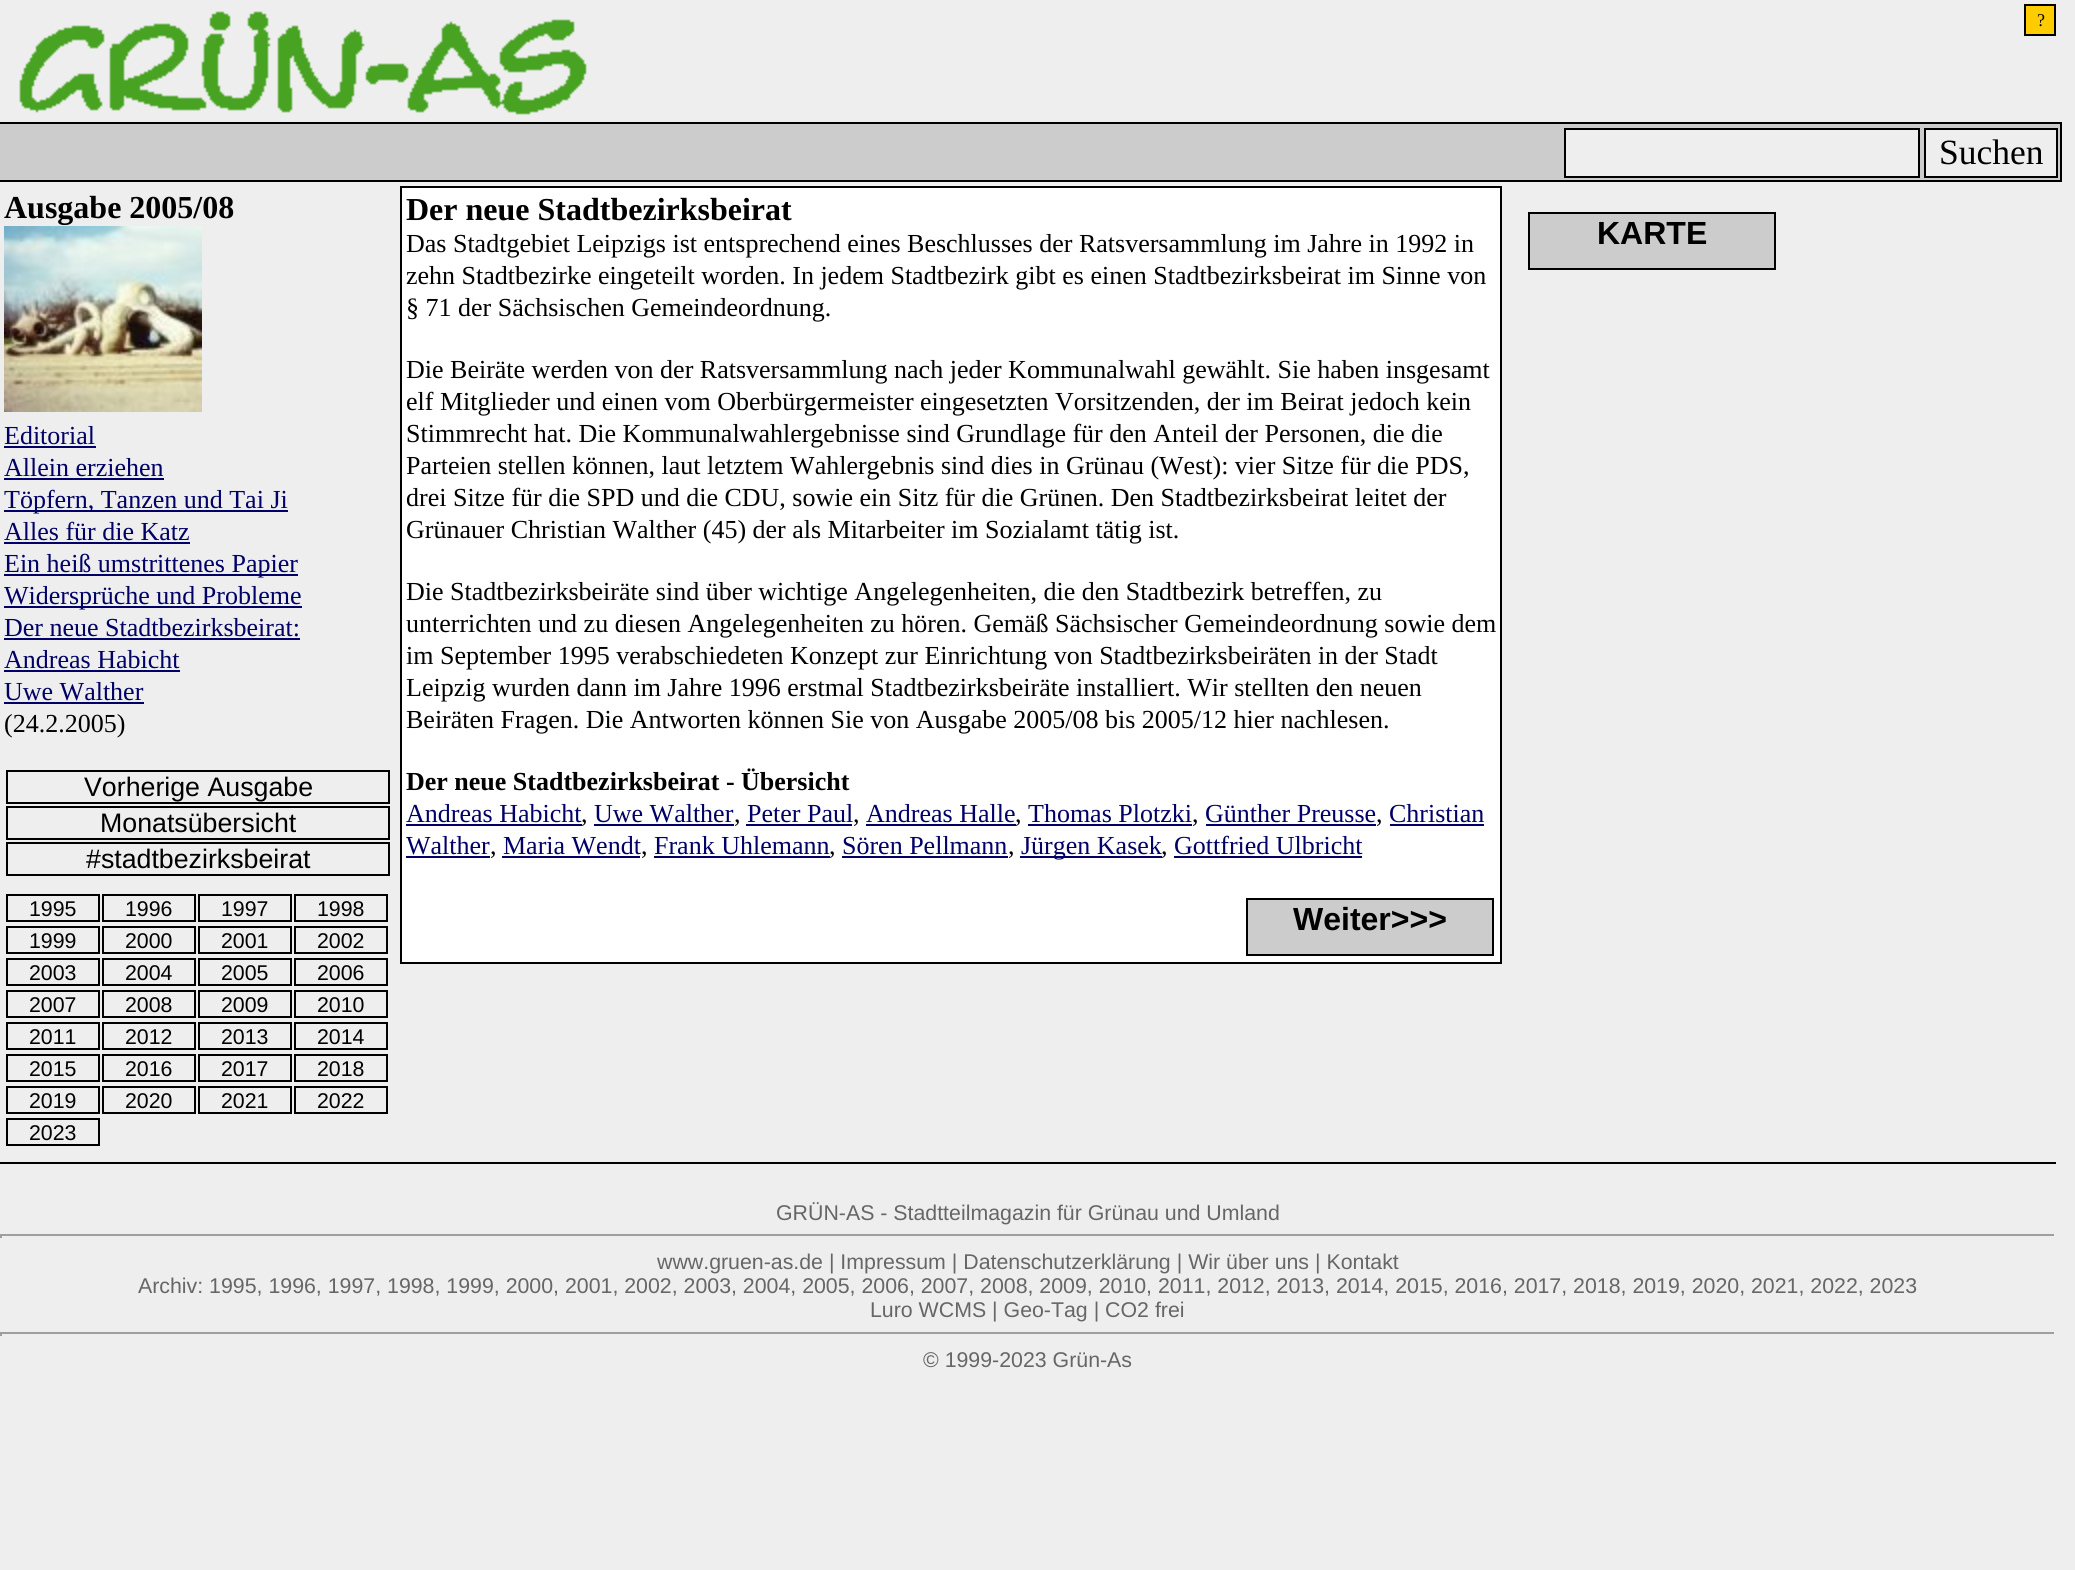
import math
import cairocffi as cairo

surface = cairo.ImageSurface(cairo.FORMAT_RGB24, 2075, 1570)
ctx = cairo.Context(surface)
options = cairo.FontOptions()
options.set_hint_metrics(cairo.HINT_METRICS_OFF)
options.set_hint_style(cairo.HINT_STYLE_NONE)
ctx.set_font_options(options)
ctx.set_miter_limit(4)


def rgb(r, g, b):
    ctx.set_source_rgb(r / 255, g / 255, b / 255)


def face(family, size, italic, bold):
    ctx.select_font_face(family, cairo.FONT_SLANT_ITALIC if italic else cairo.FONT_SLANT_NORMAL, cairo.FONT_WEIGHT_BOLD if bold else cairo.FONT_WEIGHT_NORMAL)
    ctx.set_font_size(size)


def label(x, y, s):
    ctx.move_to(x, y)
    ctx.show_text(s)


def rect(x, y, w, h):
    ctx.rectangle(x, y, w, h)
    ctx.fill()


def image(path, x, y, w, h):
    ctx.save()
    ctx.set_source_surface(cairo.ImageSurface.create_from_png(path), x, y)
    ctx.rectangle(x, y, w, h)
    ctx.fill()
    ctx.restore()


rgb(238, 238, 238)
ctx.paint()
image('image0.png', 19, 11, 568, 104)
rgb(255, 204, 0)
ctx.rectangle(2025, 5, 30, 30)
ctx.fill_preserve()
rgb(0, 0, 0)
ctx.stroke()
face('Liberation Serif', 18, 0, 0)
label(2037, 26, '?')
rgb(204, 204, 204)
rect(0, 124, 2060, 56)
rgb(0, 0, 0)
rect(0, 122, 2062, 2)
rect(2060, 122, 2, 60)
rect(0, 180, 2062, 2)
rgb(238, 238, 238)
ctx.rectangle(1565, 129, 354, 48)
ctx.fill_preserve()
rgb(0, 0, 0)
ctx.stroke()
rgb(238, 238, 238)
ctx.rectangle(1925, 129, 132, 48)
ctx.fill_preserve()
rgb(0, 0, 0)
ctx.stroke()
face('Liberation Serif', 35.5, 0, 0)
label(1939, 164, 'Suchen')
face('Liberation Serif', 32, 0, 1)
label(4, 218, 'Ausgabe 2005/08')
image('image1.png', 4, 226, 198, 186)
face('Liberation Serif', 26, 0, 0)
rgb(0, 0, 102)
label(4, 444, 'Editorial')
rect(4, 446, 92, 2)
label(4, 476, 'Allein erziehen')
rect(4, 478, 160, 2)
rect(4, 510, 284, 2)
label(4, 508, 'Töpfern, Tanzen und Tai Ji')
label(4, 540, 'Alles für die Katz')
rect(4, 542, 186, 2)
rect(4, 574, 294, 2)
label(4, 572, 'Ein heiß umstrittenes Papier')
rect(4, 606, 298, 2)
label(4, 604, 'Widersprüche und Probleme')
label(4, 636, 'Der neue Stadtbezirksbeirat:')
rect(4, 638, 296, 2)
label(4, 668, 'Andreas Habicht')
rect(4, 670, 176, 2)
label(4, 700, 'Uwe Walther')
rect(4, 702, 140, 2)
rgb(0, 0, 0)
label(4, 732, '(24.2.2005)')
ctx.rectangle(7, 771, 382, 32)
ctx.stroke()
face('Liberation Sans', 26.75, 0, 0)
label(84, 796, 'Vorherige Ausgabe')
ctx.rectangle(7, 807, 382, 32)
ctx.stroke()
label(100, 832, 'Monatsübersicht')
ctx.rectangle(7, 843, 382, 32)
ctx.stroke()
label(86, 868, '#stadtbezirksbeirat')
ctx.rectangle(7, 895, 92, 26)
ctx.stroke()
face('Liberation Sans', 21.33, 0, 0)
label(29, 916, '1995')
ctx.rectangle(103, 895, 92, 26)
ctx.stroke()
label(125, 916, '1996')
ctx.rectangle(199, 895, 92, 26)
ctx.stroke()
label(221, 916, '1997')
ctx.rectangle(295, 895, 92, 26)
ctx.stroke()
label(317, 916, '1998')
ctx.rectangle(7, 927, 92, 26)
ctx.stroke()
label(29, 948, '1999')
ctx.rectangle(103, 927, 92, 26)
ctx.stroke()
label(125, 948, '2000')
ctx.rectangle(199, 927, 92, 26)
ctx.stroke()
label(221, 948, '2001')
ctx.rectangle(295, 927, 92, 26)
ctx.stroke()
label(317, 948, '2002')
ctx.rectangle(7, 959, 92, 26)
ctx.stroke()
label(29, 980, '2003')
ctx.rectangle(103, 959, 92, 26)
ctx.stroke()
label(125, 980, '2004')
ctx.rectangle(199, 959, 92, 26)
ctx.stroke()
label(221, 980, '2005')
ctx.rectangle(295, 959, 92, 26)
ctx.stroke()
label(317, 980, '2006')
ctx.rectangle(7, 991, 92, 26)
ctx.stroke()
label(29, 1012, '2007')
ctx.rectangle(103, 991, 92, 26)
ctx.stroke()
label(125, 1012, '2008')
ctx.rectangle(199, 991, 92, 26)
ctx.stroke()
label(221, 1012, '2009')
ctx.rectangle(295, 991, 92, 26)
ctx.stroke()
label(317, 1012, '2010')
ctx.rectangle(7, 1023, 92, 26)
ctx.stroke()
label(29, 1044, '2011')
ctx.rectangle(103, 1023, 92, 26)
ctx.stroke()
label(125, 1044, '2012')
ctx.rectangle(199, 1023, 92, 26)
ctx.stroke()
label(221, 1044, '2013')
ctx.rectangle(295, 1023, 92, 26)
ctx.stroke()
label(317, 1044, '2014')
ctx.rectangle(7, 1055, 92, 26)
ctx.stroke()
label(29, 1076, '2015')
ctx.rectangle(103, 1055, 92, 26)
ctx.stroke()
label(125, 1076, '2016')
ctx.rectangle(199, 1055, 92, 26)
ctx.stroke()
label(221, 1076, '2017')
ctx.rectangle(295, 1055, 92, 26)
ctx.stroke()
label(317, 1076, '2018')
ctx.rectangle(7, 1087, 92, 26)
ctx.stroke()
label(29, 1108, '2019')
ctx.rectangle(103, 1087, 92, 26)
ctx.stroke()
label(125, 1108, '2020')
ctx.rectangle(199, 1087, 92, 26)
ctx.stroke()
label(221, 1108, '2021')
ctx.rectangle(295, 1087, 92, 26)
ctx.stroke()
label(317, 1108, '2022')
ctx.rectangle(7, 1119, 92, 26)
ctx.stroke()
label(29, 1140, '2023')
rgb(255, 255, 255)
ctx.rectangle(401, 187, 1100, 776)
ctx.fill_preserve()
rgb(0, 0, 0)
ctx.stroke()
face('Liberation Serif', 32, 0, 1)
label(406, 220, 'Der neue Stadtbezirksbeirat')
face('Liberation Serif', 26, 0, 0)
label(406, 252, 'Das Stadtgebiet Leipzigs ist entsprechend eines Beschlusses der Ratsversammlung im Jahre in 1992 in')
label(406, 284, 'zehn Stadtbezirke eingeteilt worden. In jedem Stadtbezirk gibt es einen Stadtbezirksbeirat im Sinne von')
label(406, 316, '§ 71 der Sächsischen Gemeindeordnung.')
label(406, 378, 'Die Beiräte werden von der Ratsversammlung nach jeder Kommunalwahl gewählt. Sie haben insgesamt')
label(406, 410, 'elf Mitglieder und einen vom Oberbürgermeister eingesetzten Vorsitzenden, der im Beirat jedoch kein')
label(406, 442, 'Stimmrecht hat. Die Kommunalwahlergebnisse sind Grundlage für den Anteil der Personen, die die')
label(406, 474, 'Parteien stellen können, laut letztem Wahlergebnis sind dies in Grünau (West): vier Sitze für die PDS,')
label(406, 506, 'drei Sitze für die SPD und die CDU, sowie ein Sitz für die Grünen. Den Stadtbezirksbeirat leitet der')
label(406, 538, 'Grünauer Christian Walther (45) der als Mitarbeiter im Sozialamt tätig ist.')
label(406, 600, 'Die Stadtbezirksbeiräte sind über wichtige Angelegenheiten, die den Stadtbezirk betreffen, zu')
label(406, 632, 'unterrichten und zu diesen Angelegenheiten zu hören. Gemäß Sächsischer Gemeindeordnung sowie dem')
label(406, 664, 'im September 1995 verabschiedeten Konzept zur Einrichtung von Stadtbezirksbeiräten in der Stadt')
label(406, 696, 'Leipzig wurden dann im Jahre 1996 erstmal Stadtbezirksbeiräte installiert. Wir stellten den neuen')
label(406, 728, 'Beiräten Fragen. Die Antworten können Sie von Ausgabe 2005/08 bis 2005/12 hier nachlesen.')
face('Liberation Serif', 26, 0, 1)
label(406, 790, 'Der neue Stadtbezirksbeirat - Übersicht')
face('Liberation Serif', 26, 0, 0)
rgb(0, 0, 102)
label(406, 822, 'Andreas Habicht')
rect(406, 824, 176, 2)
rgb(0, 0, 0)
label(581, 822, ',')
rgb(0, 0, 102)
label(594, 822, 'Uwe Walther')
rect(594, 824, 140, 2)
rgb(0, 0, 0)
label(734, 822, ',')
rgb(0, 0, 102)
label(747, 822, 'Peter Paul')
rect(746, 824, 106, 2)
rgb(0, 0, 0)
label(853, 822, ',')
rgb(0, 0, 102)
label(866, 822, 'Andreas Halle')
rect(866, 824, 150, 2)
rgb(0, 0, 0)
label(1015, 822, ',')
rgb(0, 0, 102)
label(1028, 822, 'Thomas Plotzki')
rect(1028, 824, 164, 2)
rgb(0, 0, 0)
label(1192, 822, ',')
rgb(0, 0, 102)
label(1205, 822, 'Günther Preusse')
rect(1206, 824, 170, 2)
rgb(0, 0, 0)
label(1376, 822, ',')
rgb(0, 0, 102)
label(1389, 822, 'Christian')
rect(1390, 824, 94, 2)
label(406, 854, 'Walther')
rect(406, 856, 84, 2)
rgb(0, 0, 0)
label(490, 854, ',')
rgb(0, 0, 102)
label(503, 854, 'Maria Wendt')
rect(502, 856, 138, 2)
rgb(0, 0, 0)
label(641, 854, ',')
rgb(0, 0, 102)
label(654, 854, 'Frank Uhlemann')
rect(654, 856, 176, 2)
rgb(0, 0, 0)
label(829, 854, ',')
rgb(0, 0, 102)
label(842, 854, 'Sören Pellmann')
rect(842, 856, 166, 2)
rgb(0, 0, 0)
label(1008, 854, ',')
rgb(0, 0, 102)
rect(1020, 856, 142, 2)
label(1021, 854, 'Jürgen Kasek')
rgb(0, 0, 0)
label(1161, 854, ',')
rgb(0, 0, 102)
label(1174, 854, 'Gottfried Ulbricht')
rect(1174, 856, 188, 2)
rgb(204, 204, 204)
ctx.rectangle(1247, 899, 246, 56)
ctx.fill_preserve()
rgb(0, 0, 0)
ctx.stroke()
face('Liberation Sans', 32, 0, 1)
label(1293, 930, 'Weiter>>>')
rgb(204, 204, 204)
ctx.rectangle(1529, 213, 246, 56)
ctx.fill_preserve()
rgb(0, 0, 0)
ctx.stroke()
label(1597, 244, 'KARTE')
rect(0, 1162, 2056, 2)
face('Liberation Sans', 21.33, 0, 0)
rgb(102, 102, 102)
label(776, 1220, 'GRÜN-AS - Stadtteilmagazin für Grünau und Umland')
rgb(159, 159, 159)
rect(0, 1234, 2056, 2)
rgb(238, 238, 238)
rect(2054, 1234, 2, 4)
rgb(159, 159, 159)
rect(0, 1234, 2, 4)
rgb(102, 102, 102)
label(657, 1269, 'www.gruen-as.de | Impressum | Datenschutzerklärung | Wir über uns | Kontakt')
label(138, 1293, 'Archiv: 1995, 1996, 1997, 1998, 1999, 2000, 2001, 2002, 2003, 2004, 2005, 2006, 2007, 2008, 2009, 2010, 2011, 2012, 2013, 2014, 2015, 2016, 2017, 2018, 2019, 2020, 2021, 2022, 2023')
label(870, 1317, 'Luro WCMS | Geo-Tag | CO2 frei')
rgb(159, 159, 159)
rect(0, 1332, 2056, 2)
rgb(238, 238, 238)
rect(2054, 1332, 2, 4)
rgb(159, 159, 159)
rect(0, 1332, 2, 4)
rgb(102, 102, 102)
label(923, 1367, '© 1999-2023 Grün-As')
surface.write_to_png('render.png')
